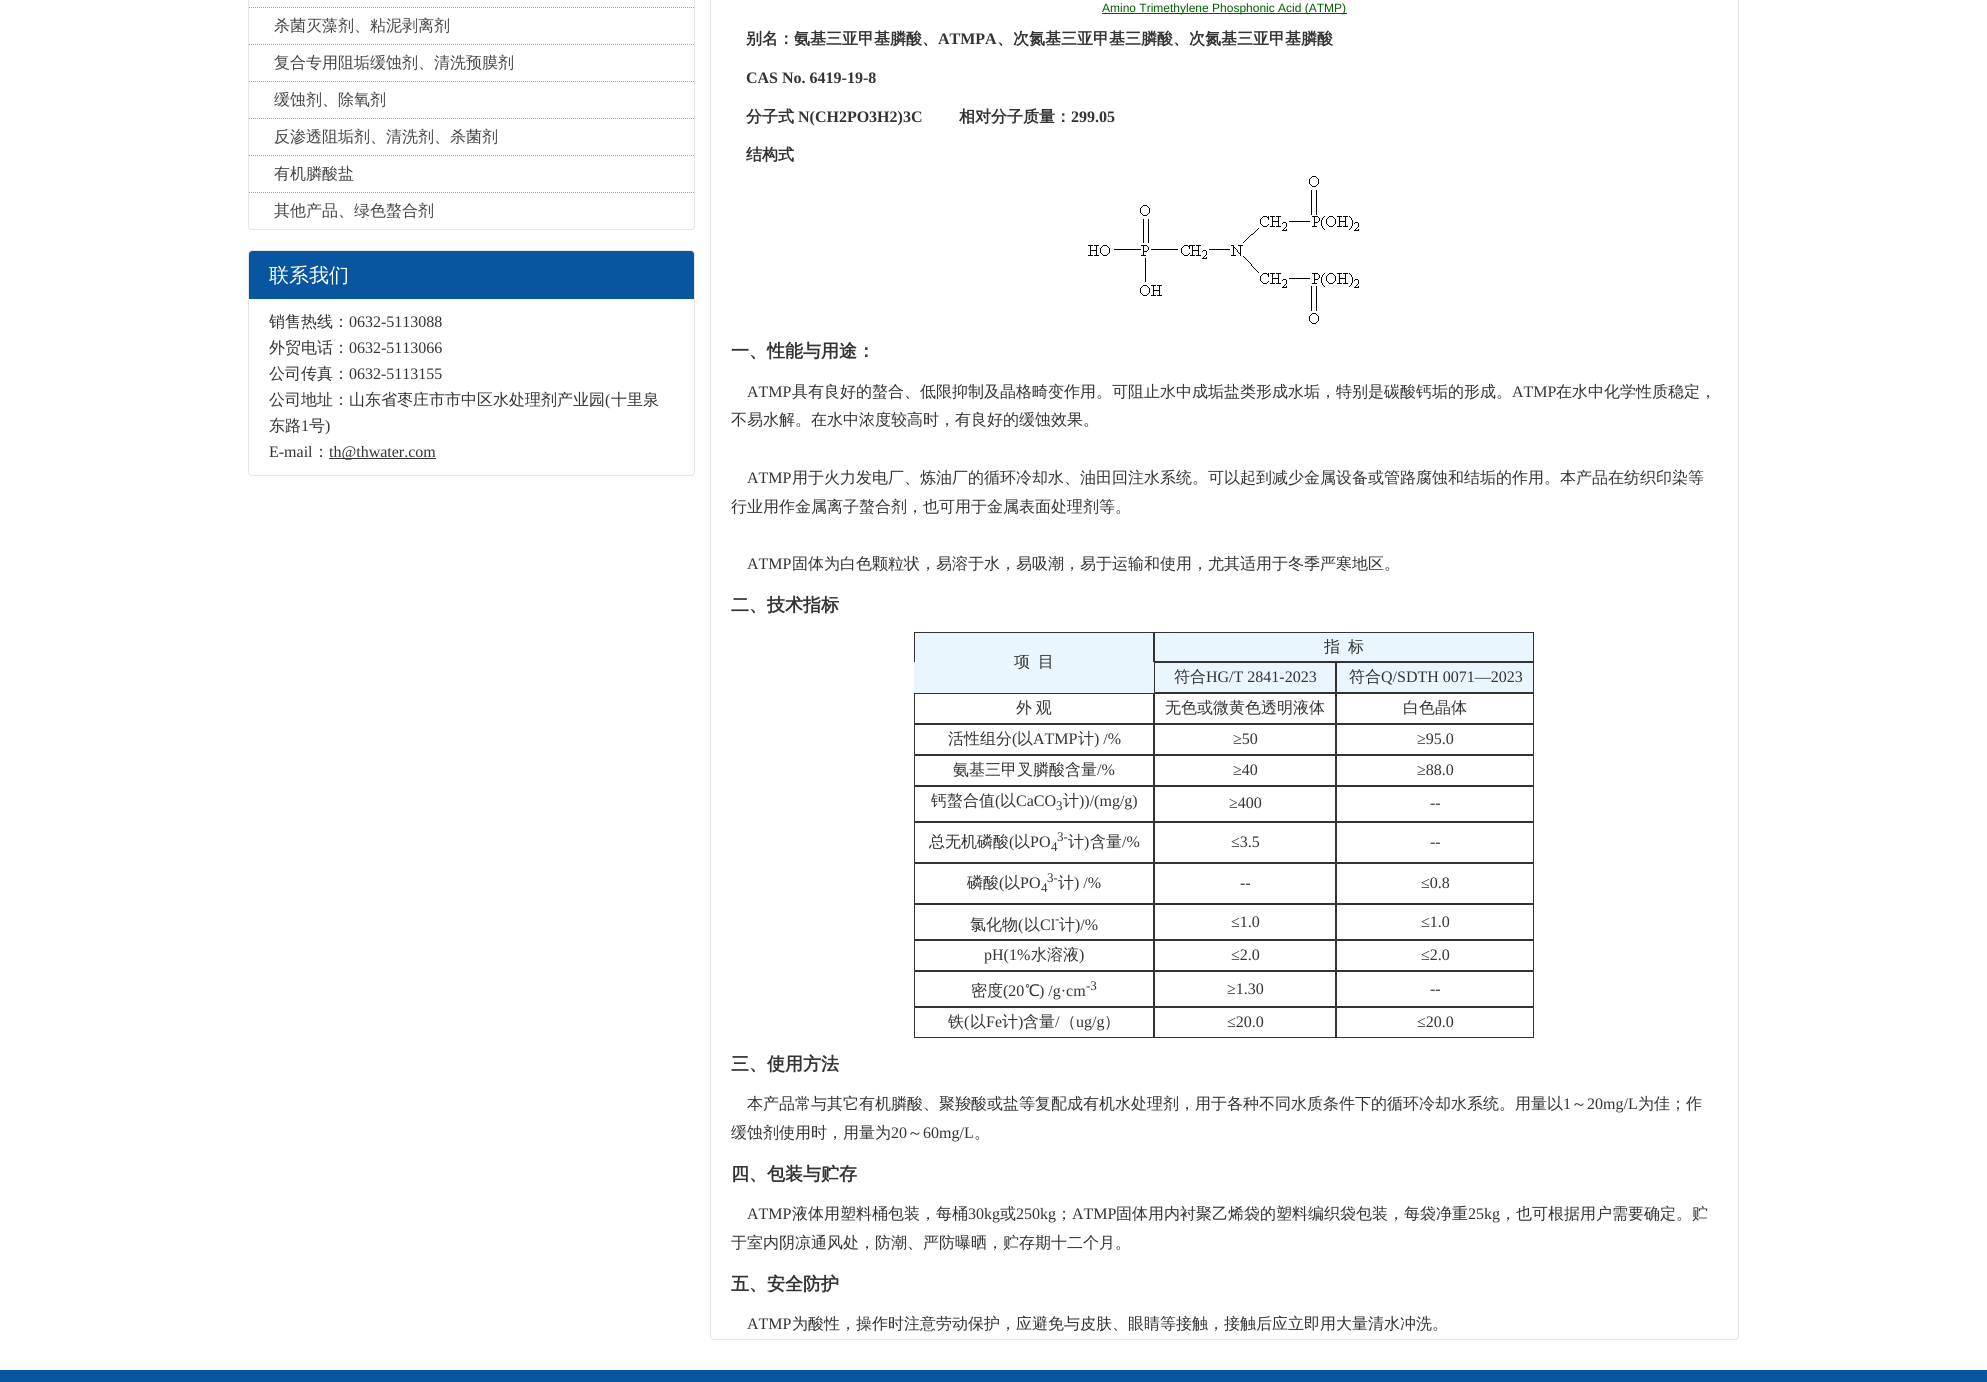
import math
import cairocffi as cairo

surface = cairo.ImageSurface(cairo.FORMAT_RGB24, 1987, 1382)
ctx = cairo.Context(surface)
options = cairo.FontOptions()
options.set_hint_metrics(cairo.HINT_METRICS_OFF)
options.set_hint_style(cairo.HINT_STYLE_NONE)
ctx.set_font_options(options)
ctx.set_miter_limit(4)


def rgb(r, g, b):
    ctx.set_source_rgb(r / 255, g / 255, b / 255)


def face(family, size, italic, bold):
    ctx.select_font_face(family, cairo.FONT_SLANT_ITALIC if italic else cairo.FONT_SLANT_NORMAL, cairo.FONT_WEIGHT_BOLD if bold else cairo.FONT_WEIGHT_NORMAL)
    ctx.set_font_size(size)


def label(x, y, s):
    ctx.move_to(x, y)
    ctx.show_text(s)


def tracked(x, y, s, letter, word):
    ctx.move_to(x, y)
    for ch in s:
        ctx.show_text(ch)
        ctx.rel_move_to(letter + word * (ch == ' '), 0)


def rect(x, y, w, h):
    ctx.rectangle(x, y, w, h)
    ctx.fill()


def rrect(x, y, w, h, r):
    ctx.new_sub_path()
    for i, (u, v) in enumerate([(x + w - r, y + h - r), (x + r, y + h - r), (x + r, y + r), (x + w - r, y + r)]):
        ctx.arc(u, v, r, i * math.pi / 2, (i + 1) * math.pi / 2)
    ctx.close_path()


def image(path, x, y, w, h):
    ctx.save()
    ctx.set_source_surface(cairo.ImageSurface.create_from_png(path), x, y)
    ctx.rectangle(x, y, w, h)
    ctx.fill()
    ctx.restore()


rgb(255, 255, 255)
ctx.paint()
rrect(248.5, -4.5, 446, 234, 3.5)
rgb(229, 229, 229)
ctx.set_line_width(1)
ctx.stroke()
ctx.new_path()
ctx.move_to(249, 7.5)
ctx.line_to(694, 7.5)
rgb(127, 173, 199)
ctx.set_dash([1, 1])
ctx.stroke()
ctx.new_path()
ctx.move_to(249, 44.5)
ctx.line_to(694, 44.5)
ctx.stroke()
face('WenQuanYi Zen Hei Medium', 16, 0, 0)
rgb(68, 68, 68)
label(274, 31, '杀菌灭藻剂、粘泥剥离剂')
ctx.new_path()
ctx.move_to(249, 81.5)
ctx.line_to(694, 81.5)
rgb(127, 173, 199)
ctx.stroke()
rgb(68, 68, 68)
label(274, 68, '复合专用阻垢缓蚀剂、清洗预膜剂')
ctx.new_path()
ctx.move_to(249, 118.5)
ctx.line_to(694, 118.5)
rgb(127, 173, 199)
ctx.stroke()
rgb(68, 68, 68)
label(274, 105, '缓蚀剂、除氧剂')
ctx.new_path()
ctx.move_to(249, 155.5)
ctx.line_to(694, 155.5)
rgb(127, 173, 199)
ctx.stroke()
rgb(68, 68, 68)
label(274, 142, '反渗透阻垢剂、清洗剂、杀菌剂')
ctx.new_path()
ctx.move_to(249, 192.5)
ctx.line_to(694, 192.5)
rgb(127, 173, 199)
ctx.stroke()
rgb(68, 68, 68)
label(274, 179, '有机膦酸盐')
label(274, 216, '其他产品、绿色螯合剂')
rrect(248.5, 250.5, 446, 225, 3.5)
rgb(229, 229, 229)
ctx.set_dash([])
ctx.stroke()
rgb(8, 86, 160)
ctx.new_path()
ctx.move_to(252, 251)
ctx.line_to(691, 251)
ctx.curve_to(692.5, 251, 694, 252.5, 694, 254)
ctx.line_to(694, 299)
ctx.line_to(249, 299)
ctx.line_to(249, 254)
ctx.curve_to(249, 252.5, 250.5, 251, 252, 251)
ctx.close_path()
ctx.fill()
face('WenQuanYi Zen Hei Medium', 20, 0, 0)
rgb(255, 255, 255)
label(269, 282, '联系我们')
face('WenQuanYi Zen Hei Medium', 16, 0, 0)
rgb(51, 51, 51)
label(269, 327, '销售热线：')
face('Liberation Serif', 16, 0, 0)
label(349, 327, '0632-5113088')
face('WenQuanYi Zen Hei Medium', 16, 0, 0)
label(269, 353, '外贸电话：')
face('Liberation Serif', 16, 0, 0)
label(349, 353, '0632-5113066')
face('WenQuanYi Zen Hei Medium', 16, 0, 0)
label(269, 379, '公司传真：')
face('Liberation Serif', 16, 0, 0)
label(349, 379, '0632-5113155')
face('WenQuanYi Zen Hei Medium', 16, 0, 0)
label(269, 405, '公司地址：山东省枣庄市市中区水处理剂产业园')
face('Liberation Serif', 16, 0, 0)
label(605, 405, '(')
face('WenQuanYi Zen Hei Medium', 16, 0, 0)
label(611, 405, '十里泉')
label(269, 431, '东路')
face('Liberation Serif', 16, 0, 0)
label(301, 431, '1')
face('WenQuanYi Zen Hei Medium', 16, 0, 0)
label(309, 431, '号')
face('Liberation Serif', 16, 0, 0)
label(325, 431, ')')
label(269, 457, 'E-mail')
face('WenQuanYi Zen Hei Medium', 16, 0, 0)
label(313, 457, '：')
rect(329, 458, 107, 1)
face('Liberation Serif', 16, 0, 0)
label(329, 457, 'th@thwater.com')
rrect(710.5, -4.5, 1028, 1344, 3.5)
rgb(229, 229, 229)
ctx.stroke()
rgb(0, 96, 0)
rect(1102, 13, 245, 1)
face('Liberation Sans', 12, 0, 0)
label(1102, 12, 'Amino Trimethylene Phosphonic Acid (ATMP)')
face('WenQuanYi Zen Hei', 16, 0, 1)
rgb(51, 51, 51)
label(746, 44, '别名：')
label(794, 44, '氨基三亚甲基膦酸')
label(922, 44, '、')
face('Liberation Serif', 16, 0, 1)
label(938, 44, 'ATMPA')
face('WenQuanYi Zen Hei', 16, 0, 1)
label(997, 44, '、')
label(1013, 44, '次氮基三亚甲基三膦酸')
label(1173, 44, '、')
label(1189, 44, '次氮基三亚甲基膦酸')
face('Liberation Serif', 16, 0, 1)
label(746, 83, 'CAS No. 6419-19-8')
face('WenQuanYi Zen Hei', 16, 0, 1)
label(746, 122, '分子式')
face('Liberation Serif', 16, 0, 1)
label(798, 122, 'N(CH2PO3H2)3C')
face('WenQuanYi Zen Hei', 16, 0, 1)
label(959, 122, '相对分子质量：')
face('Liberation Serif', 16, 0, 1)
label(1071, 122, '299.05')
face('WenQuanYi Zen Hei', 16, 0, 1)
label(746, 160, '结构式')
image('image0.png', 1088, 176, 271, 148)
face('WenQuanYi Zen Hei', 18, 0, 1)
label(731, 357, '一、性能与用途：')
face('Liberation Serif', 16, 0, 0)
label(747, 397, 'ATMP')
face('WenQuanYi Zen Hei Medium', 16, 0, 0)
label(792, 397, '具有良好的螯合、低限抑制及晶格畸变作用。可阻止水中成垢盐类形成水垢，特别是碳酸钙垢的形成。')
face('Liberation Serif', 16, 0, 0)
label(1512, 397, 'ATMP')
face('WenQuanYi Zen Hei Medium', 16, 0, 0)
label(1556, 397, '在水中化学性质稳定，')
label(731, 425, '不易水解。在水中浓度较高时，有良好的缓蚀效果。')
face('Liberation Serif', 16, 0, 0)
label(747, 483, 'ATMP')
face('WenQuanYi Zen Hei Medium', 16, 0, 0)
label(792, 483, '用于火力发电厂、炼油厂的循环冷却水、油田回注水系统。可以起到减少金属设备或管路腐蚀和结垢的作用。本产品在纺织印染等')
label(731, 512, '行业用作金属离子螯合剂，也可用于金属表面处理剂等。')
face('Liberation Serif', 16, 0, 0)
label(747, 569, 'ATMP')
face('WenQuanYi Zen Hei Medium', 16, 0, 0)
label(792, 569, '固体为白色颗粒状，易溶于水，易吸潮，易于运输和使用，尤其适用于冬季严寒地区。')
face('WenQuanYi Zen Hei', 18, 0, 1)
label(731, 611, '二、技术指标')
rgb(234, 246, 253)
rect(915, 633, 618, 29)
ctx.rectangle(1154.5, 632.5, 379, 29)
rgb(51, 51, 51)
ctx.stroke()
face('WenQuanYi Zen Hei Medium', 16, 0, 0)
label(1324, 652, '指')
label(1348, 652, '标')
ctx.rectangle(914.5, 632.5, 239, 60)
ctx.stroke()
rgb(234, 246, 253)
rect(914, 662, 619, 31)
rgb(51, 51, 51)
label(1014, 667, '项')
label(1038, 667, '目')
ctx.rectangle(1154.5, 662.5, 181, 30)
ctx.stroke()
label(1174, 682, '符合')
face('Liberation Serif', 16, 0, 0)
label(1206, 682, 'HG/T 2841-2023')
ctx.rectangle(1336.5, 662.5, 197, 30)
ctx.stroke()
face('WenQuanYi Zen Hei Medium', 16, 0, 0)
label(1349, 682, '符合')
face('Liberation Serif', 16, 0, 0)
label(1381, 682, 'Q/SDTH 0071—2023')
ctx.rectangle(914.5, 693.5, 239, 30)
ctx.stroke()
face('WenQuanYi Zen Hei Medium', 16, 0, 0)
tracked(1016, 713, '外 观', 0, -1)
ctx.rectangle(1154.5, 693.5, 181, 30)
ctx.stroke()
label(1165, 713, '无色或微黄色透明液体')
ctx.rectangle(1336.5, 693.5, 197, 30)
ctx.stroke()
label(1403, 713, '白色晶体')
ctx.rectangle(914.5, 724.5, 239, 30)
ctx.stroke()
label(948, 744, '活性组分')
face('Liberation Serif', 16, 0, 0)
label(1012, 744, '(')
face('WenQuanYi Zen Hei Medium', 16, 0, 0)
label(1017, 744, '以')
face('Liberation Serif', 16, 0, 0)
label(1033, 744, 'ATMP')
face('WenQuanYi Zen Hei Medium', 16, 0, 0)
label(1078, 744, '计')
face('Liberation Serif', 16, 0, 0)
label(1094, 744, ') /%')
ctx.rectangle(1154.5, 724.5, 181, 30)
ctx.stroke()
label(1233, 744, '≥50')
ctx.rectangle(1336.5, 724.5, 197, 30)
ctx.stroke()
label(1417, 744, '≥95.0')
ctx.rectangle(914.5, 755.5, 239, 30)
ctx.stroke()
face('WenQuanYi Zen Hei Medium', 16, 0, 0)
label(953, 775, '氨基三甲叉膦酸含量')
face('Liberation Serif', 16, 0, 0)
label(1097, 775, '/%')
ctx.rectangle(1154.5, 755.5, 181, 30)
ctx.stroke()
label(1233, 775, '≥40')
ctx.rectangle(1336.5, 755.5, 197, 30)
ctx.stroke()
label(1417, 775, '≥88.0')
ctx.rectangle(914.5, 786.5, 239, 35)
ctx.stroke()
face('WenQuanYi Zen Hei Medium', 16, 0, 0)
label(931, 806, '钙螯合值')
face('Liberation Serif', 16, 0, 0)
label(995, 806, '(')
face('WenQuanYi Zen Hei Medium', 16, 0, 0)
label(1000, 806, '以')
face('Liberation Serif', 16, 0, 0)
label(1016, 806, 'CaCO')
face('Liberation Serif', 13, 0, 0)
label(1056, 810, '3')
face('WenQuanYi Zen Hei Medium', 16, 0, 0)
label(1063, 806, '计')
face('Liberation Serif', 16, 0, 0)
label(1079, 806, '))/(mg/g)')
ctx.rectangle(1154.5, 786.5, 181, 35)
ctx.stroke()
label(1229, 808, '≥400')
ctx.rectangle(1336.5, 786.5, 197, 35)
ctx.stroke()
label(1430, 808, '--')
ctx.rectangle(914.5, 822.5, 239, 40)
ctx.stroke()
face('WenQuanYi Zen Hei Medium', 16, 0, 0)
label(929, 847, '总无机磷酸')
face('Liberation Serif', 16, 0, 0)
label(1009, 847, '(')
face('WenQuanYi Zen Hei Medium', 16, 0, 0)
label(1014, 847, '以')
face('Liberation Serif', 16, 0, 0)
label(1030, 847, 'PO')
face('Liberation Serif', 13, 0, 0)
label(1051, 851, '4')
label(1057, 841, '3-')
face('WenQuanYi Zen Hei Medium', 16, 0, 0)
label(1068, 847, '计')
face('Liberation Serif', 16, 0, 0)
label(1084, 847, ')')
face('WenQuanYi Zen Hei Medium', 16, 0, 0)
label(1090, 847, '含量')
face('Liberation Serif', 16, 0, 0)
label(1122, 847, '/%')
ctx.rectangle(1154.5, 822.5, 181, 40)
ctx.stroke()
label(1231, 847, '≤3.5')
ctx.rectangle(1336.5, 822.5, 197, 40)
ctx.stroke()
label(1430, 847, '--')
ctx.rectangle(914.5, 863.5, 239, 40)
ctx.stroke()
face('WenQuanYi Zen Hei Medium', 16, 0, 0)
label(967, 888, '磷酸')
face('Liberation Serif', 16, 0, 0)
label(999, 888, '(')
face('WenQuanYi Zen Hei Medium', 16, 0, 0)
label(1004, 888, '以')
face('Liberation Serif', 16, 0, 0)
label(1020, 888, 'PO')
face('Liberation Serif', 13, 0, 0)
label(1041, 892, '4')
label(1047, 882, '3-')
face('WenQuanYi Zen Hei Medium', 16, 0, 0)
label(1058, 888, '计')
face('Liberation Serif', 16, 0, 0)
label(1074, 888, ') /%')
ctx.rectangle(1154.5, 863.5, 181, 40)
ctx.stroke()
label(1240, 888, '--')
ctx.rectangle(1336.5, 863.5, 197, 40)
ctx.stroke()
label(1421, 888, '≤0.8')
ctx.rectangle(914.5, 904.5, 239, 35)
ctx.stroke()
face('WenQuanYi Zen Hei Medium', 16, 0, 0)
label(970, 930, '氯化物')
face('Liberation Serif', 16, 0, 0)
label(1018, 930, '(')
face('WenQuanYi Zen Hei Medium', 16, 0, 0)
label(1024, 930, '以')
face('Liberation Serif', 16, 0, 0)
label(1040, 930, 'Cl')
face('Liberation Serif', 13, 0, 0)
label(1055, 923, '-')
face('WenQuanYi Zen Hei Medium', 16, 0, 0)
label(1059, 930, '计')
face('Liberation Serif', 16, 0, 0)
label(1075, 930, ')/%')
ctx.rectangle(1154.5, 904.5, 181, 35)
ctx.stroke()
label(1231, 927, '≤1.0')
ctx.rectangle(1336.5, 904.5, 197, 35)
ctx.stroke()
label(1421, 927, '≤1.0')
ctx.rectangle(914.5, 940.5, 239, 30)
ctx.stroke()
label(984, 960, 'pH(1%')
face('WenQuanYi Zen Hei Medium', 16, 0, 0)
label(1031, 960, '水溶液')
face('Liberation Serif', 16, 0, 0)
label(1079, 960, ')')
ctx.rectangle(1154.5, 940.5, 181, 30)
ctx.stroke()
label(1231, 960, '≤2.0')
ctx.rectangle(1336.5, 940.5, 197, 30)
ctx.stroke()
label(1421, 960, '≤2.0')
ctx.rectangle(914.5, 971.5, 239, 35)
ctx.stroke()
face('WenQuanYi Zen Hei Medium', 16, 0, 0)
label(971, 996, '密度')
face('Liberation Serif', 16, 0, 0)
label(1003, 996, '(20')
face('WenQuanYi Zen Hei Medium', 16, 0, 0)
label(1025, 996, '℃')
face('Liberation Serif', 16, 0, 0)
label(1039, 996, ') /g·cm')
face('Liberation Serif', 13, 0, 0)
label(1086, 990, '-3')
ctx.rectangle(1154.5, 971.5, 181, 35)
ctx.stroke()
face('Liberation Serif', 16, 0, 0)
label(1227, 994, '≥1.30')
ctx.rectangle(1336.5, 971.5, 197, 35)
ctx.stroke()
label(1430, 994, '--')
ctx.rectangle(914.5, 1007.5, 239, 30)
ctx.stroke()
face('WenQuanYi Zen Hei Medium', 16, 0, 0)
label(948, 1027, '铁')
face('Liberation Serif', 16, 0, 0)
label(964, 1027, '(')
face('WenQuanYi Zen Hei Medium', 16, 0, 0)
label(970, 1027, '以')
face('Liberation Serif', 16, 0, 0)
label(986, 1027, 'Fe')
face('WenQuanYi Zen Hei Medium', 16, 0, 0)
label(1002, 1027, '计')
face('Liberation Serif', 16, 0, 0)
label(1018, 1027, ')')
face('WenQuanYi Zen Hei Medium', 16, 0, 0)
label(1023, 1027, '含量')
face('Liberation Serif', 16, 0, 0)
label(1055, 1027, '/')
face('WenQuanYi Zen Hei Medium', 16, 0, 0)
label(1060, 1027, '（')
face('Liberation Serif', 16, 0, 0)
label(1076, 1027, 'ug/g')
face('WenQuanYi Zen Hei Medium', 16, 0, 0)
label(1104, 1027, '）')
ctx.rectangle(1154.5, 1007.5, 181, 30)
ctx.stroke()
face('Liberation Serif', 16, 0, 0)
label(1227, 1027, '≤20.0')
ctx.rectangle(1336.5, 1007.5, 197, 30)
ctx.stroke()
label(1417, 1027, '≤20.0')
face('WenQuanYi Zen Hei', 18, 0, 1)
label(731, 1070, '三、使用方法')
face('WenQuanYi Zen Hei Medium', 16, 0, 0)
label(747, 1109, '本产品常与其它有机膦酸、聚羧酸或盐等复配成有机水处理剂，用于各种不同水质条件下的循环冷却水系统。用量以')
face('Liberation Serif', 16, 0, 0)
label(1563, 1109, '1')
face('WenQuanYi Zen Hei Medium', 16, 0, 0)
label(1571, 1109, '～')
face('Liberation Serif', 16, 0, 0)
label(1587, 1109, '20mg/L')
face('WenQuanYi Zen Hei Medium', 16, 0, 0)
label(1638, 1109, '为佳；作')
label(731, 1138, '缓蚀剂使用时，用量为')
face('Liberation Serif', 16, 0, 0)
label(891, 1138, '20')
face('WenQuanYi Zen Hei Medium', 16, 0, 0)
label(907, 1138, '～')
face('Liberation Serif', 16, 0, 0)
label(923, 1138, '60mg/L')
face('WenQuanYi Zen Hei Medium', 16, 0, 0)
label(974, 1138, '。')
face('WenQuanYi Zen Hei', 18, 0, 1)
label(731, 1180, '四、包装与贮存')
face('Liberation Serif', 16, 0, 0)
label(747, 1219, 'ATMP')
face('WenQuanYi Zen Hei Medium', 16, 0, 0)
label(792, 1219, '液体用塑料桶包装，每桶')
face('Liberation Serif', 16, 0, 0)
label(968, 1219, '30kg')
face('WenQuanYi Zen Hei Medium', 16, 0, 0)
label(1000, 1219, '或')
face('Liberation Serif', 16, 0, 0)
label(1016, 1219, '250kg')
face('WenQuanYi Zen Hei Medium', 16, 0, 0)
label(1056, 1219, '；')
face('Liberation Serif', 16, 0, 0)
label(1072, 1219, 'ATMP')
face('WenQuanYi Zen Hei Medium', 16, 0, 0)
label(1116, 1219, '固体用内衬聚乙烯袋的塑料编织袋包装，每袋净重')
face('Liberation Serif', 16, 0, 0)
label(1468, 1219, '25kg')
face('WenQuanYi Zen Hei Medium', 16, 0, 0)
label(1500, 1219, '，也可根据用户需要确定。贮')
label(731, 1248, '于室内阴凉通风处，防潮、严防曝晒，贮存期十二个月。')
face('WenQuanYi Zen Hei', 18, 0, 1)
label(731, 1290, '五、安全防护')
face('Liberation Serif', 16, 0, 0)
label(747, 1329, 'ATMP')
face('WenQuanYi Zen Hei Medium', 16, 0, 0)
label(792, 1329, '为酸性，操作时注意劳动保护，应避免与皮肤、眼睛等接触，接触后应立即用大量清水冲洗。')
rgb(8, 86, 160)
rect(0, 1370, 1987, 12)
surface.write_to_png('render.png')
